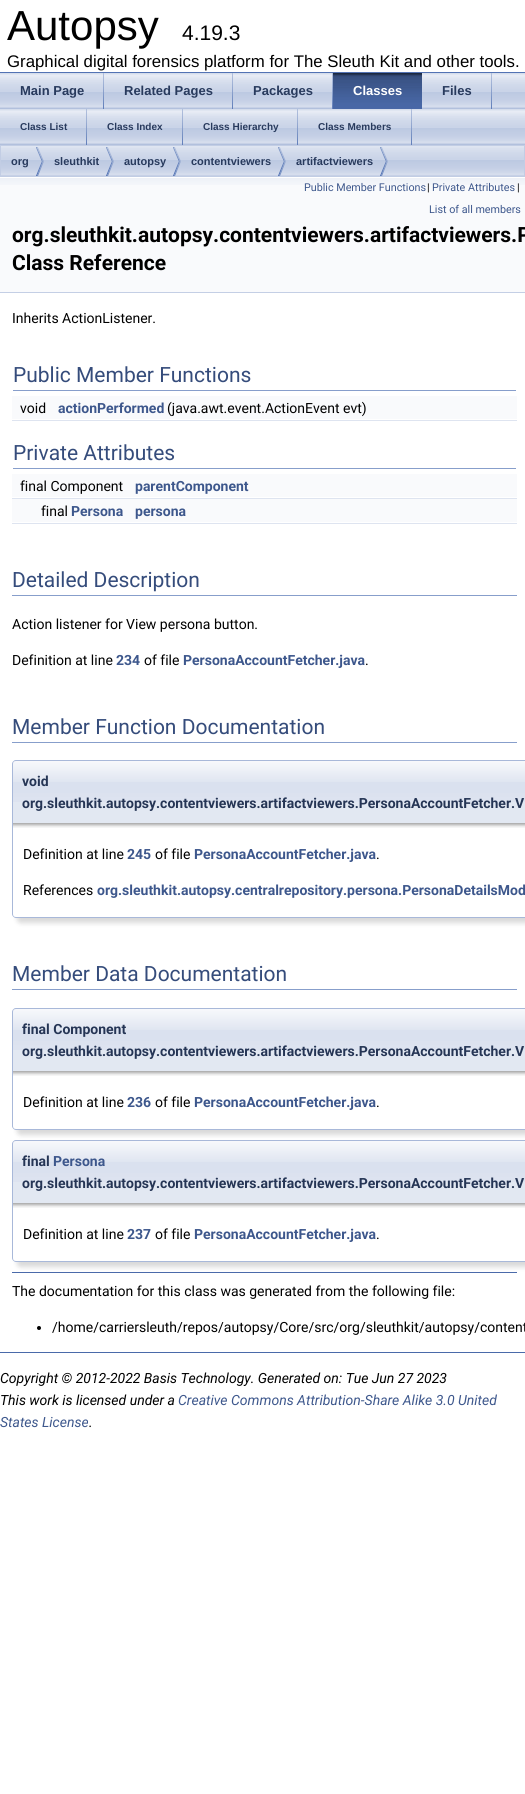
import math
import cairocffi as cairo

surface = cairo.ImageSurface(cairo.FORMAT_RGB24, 525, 1794)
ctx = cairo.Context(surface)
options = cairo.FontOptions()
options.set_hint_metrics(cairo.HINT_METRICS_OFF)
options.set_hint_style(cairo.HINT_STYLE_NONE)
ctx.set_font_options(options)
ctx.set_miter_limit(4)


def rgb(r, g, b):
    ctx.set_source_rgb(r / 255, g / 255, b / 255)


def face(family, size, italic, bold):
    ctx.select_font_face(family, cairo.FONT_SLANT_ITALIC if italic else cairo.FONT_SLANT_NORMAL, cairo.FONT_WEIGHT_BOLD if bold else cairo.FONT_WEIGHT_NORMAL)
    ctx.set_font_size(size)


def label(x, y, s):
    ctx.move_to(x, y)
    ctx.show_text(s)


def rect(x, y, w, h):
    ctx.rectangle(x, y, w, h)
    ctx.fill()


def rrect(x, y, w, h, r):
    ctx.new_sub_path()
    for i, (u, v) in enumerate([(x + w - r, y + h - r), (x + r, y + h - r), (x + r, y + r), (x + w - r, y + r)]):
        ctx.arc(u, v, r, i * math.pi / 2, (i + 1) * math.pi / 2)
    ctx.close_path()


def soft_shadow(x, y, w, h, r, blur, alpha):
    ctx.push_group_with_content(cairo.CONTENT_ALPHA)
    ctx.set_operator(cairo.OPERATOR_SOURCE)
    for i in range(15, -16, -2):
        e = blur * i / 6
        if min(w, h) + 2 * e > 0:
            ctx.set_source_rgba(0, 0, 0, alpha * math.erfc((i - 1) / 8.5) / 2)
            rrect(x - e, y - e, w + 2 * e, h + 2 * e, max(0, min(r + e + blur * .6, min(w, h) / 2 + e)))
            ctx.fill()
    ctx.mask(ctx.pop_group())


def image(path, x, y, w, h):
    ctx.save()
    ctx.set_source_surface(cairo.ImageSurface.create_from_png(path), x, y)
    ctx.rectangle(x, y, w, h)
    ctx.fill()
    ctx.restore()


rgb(255, 255, 255)
ctx.paint()
rgb(83, 115, 180)
rect(0, 72, 525, 1)
face('Liberation Sans', 42, 0, 0)
rgb(0, 0, 0)
label(7, 40, 'Autopsy')
face('Liberation Sans', 21, 0, 0)
label(182, 40, '4.19.3')
face('Liberation Sans', 16.8, 0, 0)
label(7, 67, 'Graphical digital forensics platform for The Sleuth Kit and other tools.')
image('image0.png', 0, 73, 525, 36)
image('image1.png', 103, 73, 1, 36)
face('Liberation Sans', 13, 0, 1)
rgb(40, 58, 93)
label(20, 95, 'Main Page')
image('image1.png', 232, 73, 1, 36)
label(124, 95, 'Related Pages')
image('image1.png', 332, 73, 1, 36)
label(253, 95, 'Packages')
image('image2.png', 333, 73, 89, 36)
rgb(255, 255, 255)
label(353, 95, 'Classes')
image('image1.png', 491, 73, 1, 36)
rgb(40, 58, 93)
label(442, 95, 'Files')
image('image0.png', 0, 109, 525, 36)
image('image1.png', 86, 109, 1, 36)
face('Liberation Sans', 10, 0, 1)
label(20, 130, 'Class List')
image('image1.png', 182, 109, 1, 36)
label(107, 130, 'Class Index')
image('image1.png', 297, 109, 1, 36)
label(203, 130, 'Class Hierarchy')
image('image1.png', 411, 109, 1, 36)
label(318, 130, 'Class Members')
image('image3.png', 1, 146, 523, 30)
ctx.rectangle(0.5, 145.5, 524, 31)
rgb(194, 205, 228)
ctx.set_line_width(1)
ctx.stroke()
image('image4.png', 36, 147, 8, 29)
face('Liberation Sans', 11, 0, 1)
rgb(40, 58, 93)
label(11, 165, 'org')
image('image4.png', 106, 147, 8, 29)
label(54, 165, 'sleuthkit')
image('image4.png', 173, 147, 8, 29)
label(124, 165, 'autopsy')
image('image4.png', 278, 147, 8, 29)
label(191, 165, 'contentviewers')
image('image4.png', 380, 147, 8, 29)
label(296, 165, 'artifactviewers')
rgb(249, 250, 252)
rect(0, 185, 525, 107)
image('image5.png', 0, 177, 525, 8)
rgb(196, 207, 229)
rect(0, 292, 525, 1)
face('Roboto', 10.75, 0, 0)
rgb(61, 87, 140)
label(304, 191, 'Public Member Functions')
rgb(0, 0, 0)
label(427, 191, '|')
rgb(61, 87, 140)
label(432, 191, 'Private Attributes')
rgb(0, 0, 0)
label(517, 191, '|')
rgb(61, 87, 140)
label(429, 213, 'List of all members')
face('Roboto', 21, 0, 1)
rgb(0, 0, 0)
label(12, 242, 'org.sleuthkit.autopsy.contentviewers.artifactviewers.P')
label(12, 270, 'Class Reference')
face('Roboto', 14, 0, 0)
label(12, 323, 'Inherits ActionListener.')
rgb(135, 158, 203)
rect(13, 390, 503, 1)
face('Roboto', 21, 0, 0)
rgb(53, 76, 123)
label(13, 382, 'Public Member Functions')
rgb(249, 250, 252)
rect(12, 396, 505, 23)
face('Roboto', 14, 0, 0)
rgb(0, 0, 0)
label(20, 413, 'void')
face('Roboto', 14, 0, 1)
rgb(61, 87, 140)
label(58, 413, 'actionPerformed')
face('Roboto', 14, 0, 0)
rgb(0, 0, 0)
label(167, 413, '(java.awt.event.ActionEvent evt)')
rgb(222, 228, 240)
rect(12, 420, 505, 1)
rgb(135, 158, 203)
rect(13, 468, 503, 1)
face('Roboto', 21, 0, 0)
rgb(53, 76, 123)
label(13, 460, 'Private Attributes')
rgb(249, 250, 252)
rect(12, 474, 505, 23)
face('Roboto', 14, 0, 0)
rgb(0, 0, 0)
label(20, 491, 'final Component')
face('Roboto', 14, 0, 1)
rgb(61, 87, 140)
label(135, 491, 'parentComponent')
rgb(222, 228, 240)
rect(12, 498, 505, 1)
rgb(249, 250, 252)
rect(12, 499, 505, 23)
face('Roboto', 14, 0, 0)
rgb(0, 0, 0)
label(41, 516, 'final')
face('Roboto', 14, 0, 1)
rgb(61, 87, 140)
label(71, 516, 'Persona')
label(135, 516, 'persona')
rgb(222, 228, 240)
rect(12, 523, 505, 1)
rgb(135, 158, 203)
rect(12, 595, 505, 1)
face('Roboto', 21, 0, 0)
rgb(53, 76, 123)
label(12, 587, 'Detailed Description')
face('Roboto', 14, 0, 0)
rgb(0, 0, 0)
label(12, 629, 'Action listener for View persona button.')
label(12, 665, 'Definition at line')
face('Roboto', 14, 0, 1)
rgb(61, 87, 140)
label(116, 665, '234')
face('Roboto', 14, 0, 0)
rgb(0, 0, 0)
label(144, 665, 'of file')
face('Roboto', 14, 0, 1)
rgb(61, 87, 140)
label(183, 665, 'PersonaAccountFetcher.java')
face('Roboto', 14, 0, 0)
rgb(0, 0, 0)
label(365, 665, '.')
rgb(135, 158, 203)
rect(12, 742, 505, 1)
face('Roboto', 21, 0, 0)
rgb(53, 76, 123)
label(12, 734, 'Member Function Documentation')
rgb(226, 232, 242)
ctx.new_path()
ctx.move_to(16, 760)
ctx.line_to(525, 760)
ctx.curve_to(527, 760, 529, 762, 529, 764)
ctx.line_to(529, 823)
ctx.line_to(12, 823)
ctx.line_to(12, 764)
ctx.curve_to(12, 762, 14, 760, 16, 760)
ctx.close_path()
ctx.fill()
image('image6.png', 12, 761, 513, 41)
rgb(168, 184, 217)
ctx.set_fill_rule(cairo.FILL_RULE_EVEN_ODD)
ctx.new_path()
ctx.move_to(16, 760)
ctx.line_to(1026, 760)
ctx.curve_to(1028, 760, 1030, 762, 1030, 764)
ctx.line_to(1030, 823)
ctx.line_to(12, 823)
ctx.line_to(12, 764)
ctx.curve_to(12, 762, 14, 760, 16, 760)
ctx.close_path()
ctx.move_to(16, 761)
ctx.line_to(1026, 761)
ctx.curve_to(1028, 761, 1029, 762, 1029, 764)
ctx.line_to(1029, 823)
ctx.line_to(13, 823)
ctx.line_to(13, 764)
ctx.curve_to(13, 762, 14, 761, 16, 761)
ctx.close_path()
ctx.fill()
face('Roboto', 14, 0, 1)
rgb(37, 53, 85)
label(22, 786, 'void')
label(22, 808, 'org.sleuthkit.autopsy.contentviewers.artifactviewers.PersonaAccountFetcher.V')
rgb(0, 0, 0)
soft_shadow(17, 828, 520, 95, 4, 2.5, 0.15)
rgb(255, 255, 255)
ctx.new_path()
ctx.move_to(12, 823)
ctx.line_to(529, 823)
ctx.line_to(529, 914)
ctx.curve_to(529, 916, 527, 918, 525, 918)
ctx.line_to(16, 918)
ctx.curve_to(14, 918, 12, 916, 12, 914)
ctx.close_path()
ctx.fill()
image('image7.png', 13, 823, 512, 5)
rgb(168, 184, 217)
ctx.new_path()
ctx.move_to(12, 823)
ctx.line_to(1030, 823)
ctx.line_to(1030, 914)
ctx.curve_to(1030, 916, 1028, 918, 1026, 918)
ctx.line_to(16, 918)
ctx.curve_to(14, 918, 12, 916, 12, 914)
ctx.close_path()
ctx.move_to(13, 823)
ctx.line_to(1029, 823)
ctx.line_to(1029, 914)
ctx.curve_to(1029, 916, 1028, 917, 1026, 917)
ctx.line_to(16, 917)
ctx.curve_to(14, 917, 13, 916, 13, 914)
ctx.close_path()
ctx.fill()
face('Roboto', 14, 0, 0)
rgb(0, 0, 0)
label(23, 859, 'Definition at line')
face('Roboto', 14, 0, 1)
rgb(61, 87, 140)
label(127, 859, '245')
face('Roboto', 14, 0, 0)
rgb(0, 0, 0)
label(155, 859, 'of file')
face('Roboto', 14, 0, 1)
rgb(61, 87, 140)
label(194, 859, 'PersonaAccountFetcher.java')
face('Roboto', 14, 0, 0)
rgb(0, 0, 0)
label(376, 859, '.')
label(23, 895, 'References')
face('Roboto', 14, 0, 1)
rgb(61, 87, 140)
label(97, 895, 'org.sleuthkit.autopsy.centralrepository.persona.PersonaDetailsMod')
rgb(135, 158, 203)
rect(12, 989, 505, 1)
face('Roboto', 21, 0, 0)
rgb(53, 76, 123)
label(12, 981, 'Member Data Documentation')
rgb(226, 232, 242)
ctx.new_path()
ctx.move_to(16, 1008)
ctx.line_to(525, 1008)
ctx.curve_to(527, 1008, 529, 1010, 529, 1012)
ctx.line_to(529, 1071)
ctx.line_to(12, 1071)
ctx.line_to(12, 1012)
ctx.curve_to(12, 1010, 14, 1008, 16, 1008)
ctx.close_path()
ctx.fill()
image('image8.png', 12, 1009, 513, 41)
rgb(168, 184, 217)
ctx.new_path()
ctx.move_to(16, 1008)
ctx.line_to(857, 1008)
ctx.curve_to(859, 1008, 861, 1010, 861, 1012)
ctx.line_to(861, 1071)
ctx.line_to(12, 1071)
ctx.line_to(12, 1012)
ctx.curve_to(12, 1010, 14, 1008, 16, 1008)
ctx.close_path()
ctx.move_to(16, 1009)
ctx.line_to(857, 1009)
ctx.curve_to(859, 1009, 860, 1010, 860, 1012)
ctx.line_to(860, 1071)
ctx.line_to(13, 1071)
ctx.line_to(13, 1012)
ctx.curve_to(13, 1010, 14, 1009, 16, 1009)
ctx.close_path()
ctx.fill()
face('Roboto', 14, 0, 1)
rgb(37, 53, 85)
label(22, 1034, 'final Component')
label(22, 1056, 'org.sleuthkit.autopsy.contentviewers.artifactviewers.PersonaAccountFetcher.V')
rgb(0, 0, 0)
soft_shadow(17, 1076, 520, 59, 4, 2.5, 0.15)
rgb(255, 255, 255)
ctx.new_path()
ctx.move_to(12, 1071)
ctx.line_to(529, 1071)
ctx.line_to(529, 1126)
ctx.curve_to(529, 1128, 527, 1130, 525, 1130)
ctx.line_to(16, 1130)
ctx.curve_to(14, 1130, 12, 1128, 12, 1126)
ctx.close_path()
ctx.fill()
image('image7.png', 13, 1071, 512, 5)
rgb(168, 184, 217)
ctx.new_path()
ctx.move_to(12, 1071)
ctx.line_to(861, 1071)
ctx.line_to(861, 1126)
ctx.curve_to(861, 1128, 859, 1130, 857, 1130)
ctx.line_to(16, 1130)
ctx.curve_to(14, 1130, 12, 1128, 12, 1126)
ctx.close_path()
ctx.move_to(13, 1071)
ctx.line_to(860, 1071)
ctx.line_to(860, 1126)
ctx.curve_to(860, 1128, 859, 1129, 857, 1129)
ctx.line_to(16, 1129)
ctx.curve_to(14, 1129, 13, 1128, 13, 1126)
ctx.close_path()
ctx.fill()
face('Roboto', 14, 0, 0)
rgb(0, 0, 0)
label(23, 1107, 'Definition at line')
face('Roboto', 14, 0, 1)
rgb(61, 87, 140)
label(127, 1107, '236')
face('Roboto', 14, 0, 0)
rgb(0, 0, 0)
label(155, 1107, 'of file')
face('Roboto', 14, 0, 1)
rgb(61, 87, 140)
label(194, 1107, 'PersonaAccountFetcher.java')
face('Roboto', 14, 0, 0)
rgb(0, 0, 0)
label(376, 1107, '.')
rgb(226, 232, 242)
ctx.new_path()
ctx.move_to(16, 1140)
ctx.line_to(525, 1140)
ctx.curve_to(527, 1140, 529, 1142, 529, 1144)
ctx.line_to(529, 1203)
ctx.line_to(12, 1203)
ctx.line_to(12, 1144)
ctx.curve_to(12, 1142, 14, 1140, 16, 1140)
ctx.close_path()
ctx.fill()
image('image8.png', 12, 1141, 513, 41)
rgb(168, 184, 217)
ctx.new_path()
ctx.move_to(16, 1140)
ctx.line_to(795, 1140)
ctx.curve_to(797, 1140, 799, 1142, 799, 1144)
ctx.line_to(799, 1203)
ctx.line_to(12, 1203)
ctx.line_to(12, 1144)
ctx.curve_to(12, 1142, 14, 1140, 16, 1140)
ctx.close_path()
ctx.move_to(16, 1141)
ctx.line_to(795, 1141)
ctx.curve_to(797, 1141, 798, 1142, 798, 1144)
ctx.line_to(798, 1203)
ctx.line_to(13, 1203)
ctx.line_to(13, 1144)
ctx.curve_to(13, 1142, 14, 1141, 16, 1141)
ctx.close_path()
ctx.fill()
face('Roboto', 14, 0, 1)
rgb(37, 53, 85)
label(22, 1166, 'final')
rgb(61, 87, 140)
label(53, 1166, 'Persona')
rgb(37, 53, 85)
label(22, 1188, 'org.sleuthkit.autopsy.contentviewers.artifactviewers.PersonaAccountFetcher.V')
rgb(0, 0, 0)
soft_shadow(17, 1208, 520, 59, 4, 2.5, 0.15)
rgb(255, 255, 255)
ctx.new_path()
ctx.move_to(12, 1203)
ctx.line_to(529, 1203)
ctx.line_to(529, 1258)
ctx.curve_to(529, 1260, 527, 1262, 525, 1262)
ctx.line_to(16, 1262)
ctx.curve_to(14, 1262, 12, 1260, 12, 1258)
ctx.close_path()
ctx.fill()
image('image7.png', 13, 1203, 512, 5)
rgb(168, 184, 217)
ctx.new_path()
ctx.move_to(12, 1203)
ctx.line_to(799, 1203)
ctx.line_to(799, 1258)
ctx.curve_to(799, 1260, 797, 1262, 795, 1262)
ctx.line_to(16, 1262)
ctx.curve_to(14, 1262, 12, 1260, 12, 1258)
ctx.close_path()
ctx.move_to(13, 1203)
ctx.line_to(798, 1203)
ctx.line_to(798, 1258)
ctx.curve_to(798, 1260, 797, 1261, 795, 1261)
ctx.line_to(16, 1261)
ctx.curve_to(14, 1261, 13, 1260, 13, 1258)
ctx.close_path()
ctx.fill()
face('Roboto', 14, 0, 0)
rgb(0, 0, 0)
label(23, 1239, 'Definition at line')
face('Roboto', 14, 0, 1)
rgb(61, 87, 140)
label(127, 1239, '237')
face('Roboto', 14, 0, 0)
rgb(0, 0, 0)
label(155, 1239, 'of file')
face('Roboto', 14, 0, 1)
rgb(61, 87, 140)
label(194, 1239, 'PersonaAccountFetcher.java')
face('Roboto', 14, 0, 0)
rgb(0, 0, 0)
label(376, 1239, '.')
rgb(74, 106, 170)
rect(12, 1272, 505, 1)
rgb(0, 0, 0)
label(12, 1296, 'The documentation for this class was generated from the following file:')
ctx.new_path()
ctx.arc(39, 1328, 2, 0, 2 * math.pi)
ctx.fill()
label(52, 1332, '/home/carriersleuth/repos/autopsy/Core/src/org/sleuthkit/autopsy/content')
rgb(74, 106, 170)
rect(0, 1352, 525, 1)
face('Roboto', 14, 1, 0)
rgb(0, 0, 0)
label(0, 1383, 'Copyright © 2012-2022 Basis Technology. Generated on: Tue Jun 27 2023')
label(0, 1405, 'This work is licensed under a')
rgb(61, 87, 140)
label(178, 1405, 'Creative Commons Attribution-Share Alike 3.0 United')
label(0, 1427, 'States License')
rgb(0, 0, 0)
label(89, 1427, '.')
surface.write_to_png('render.png')
